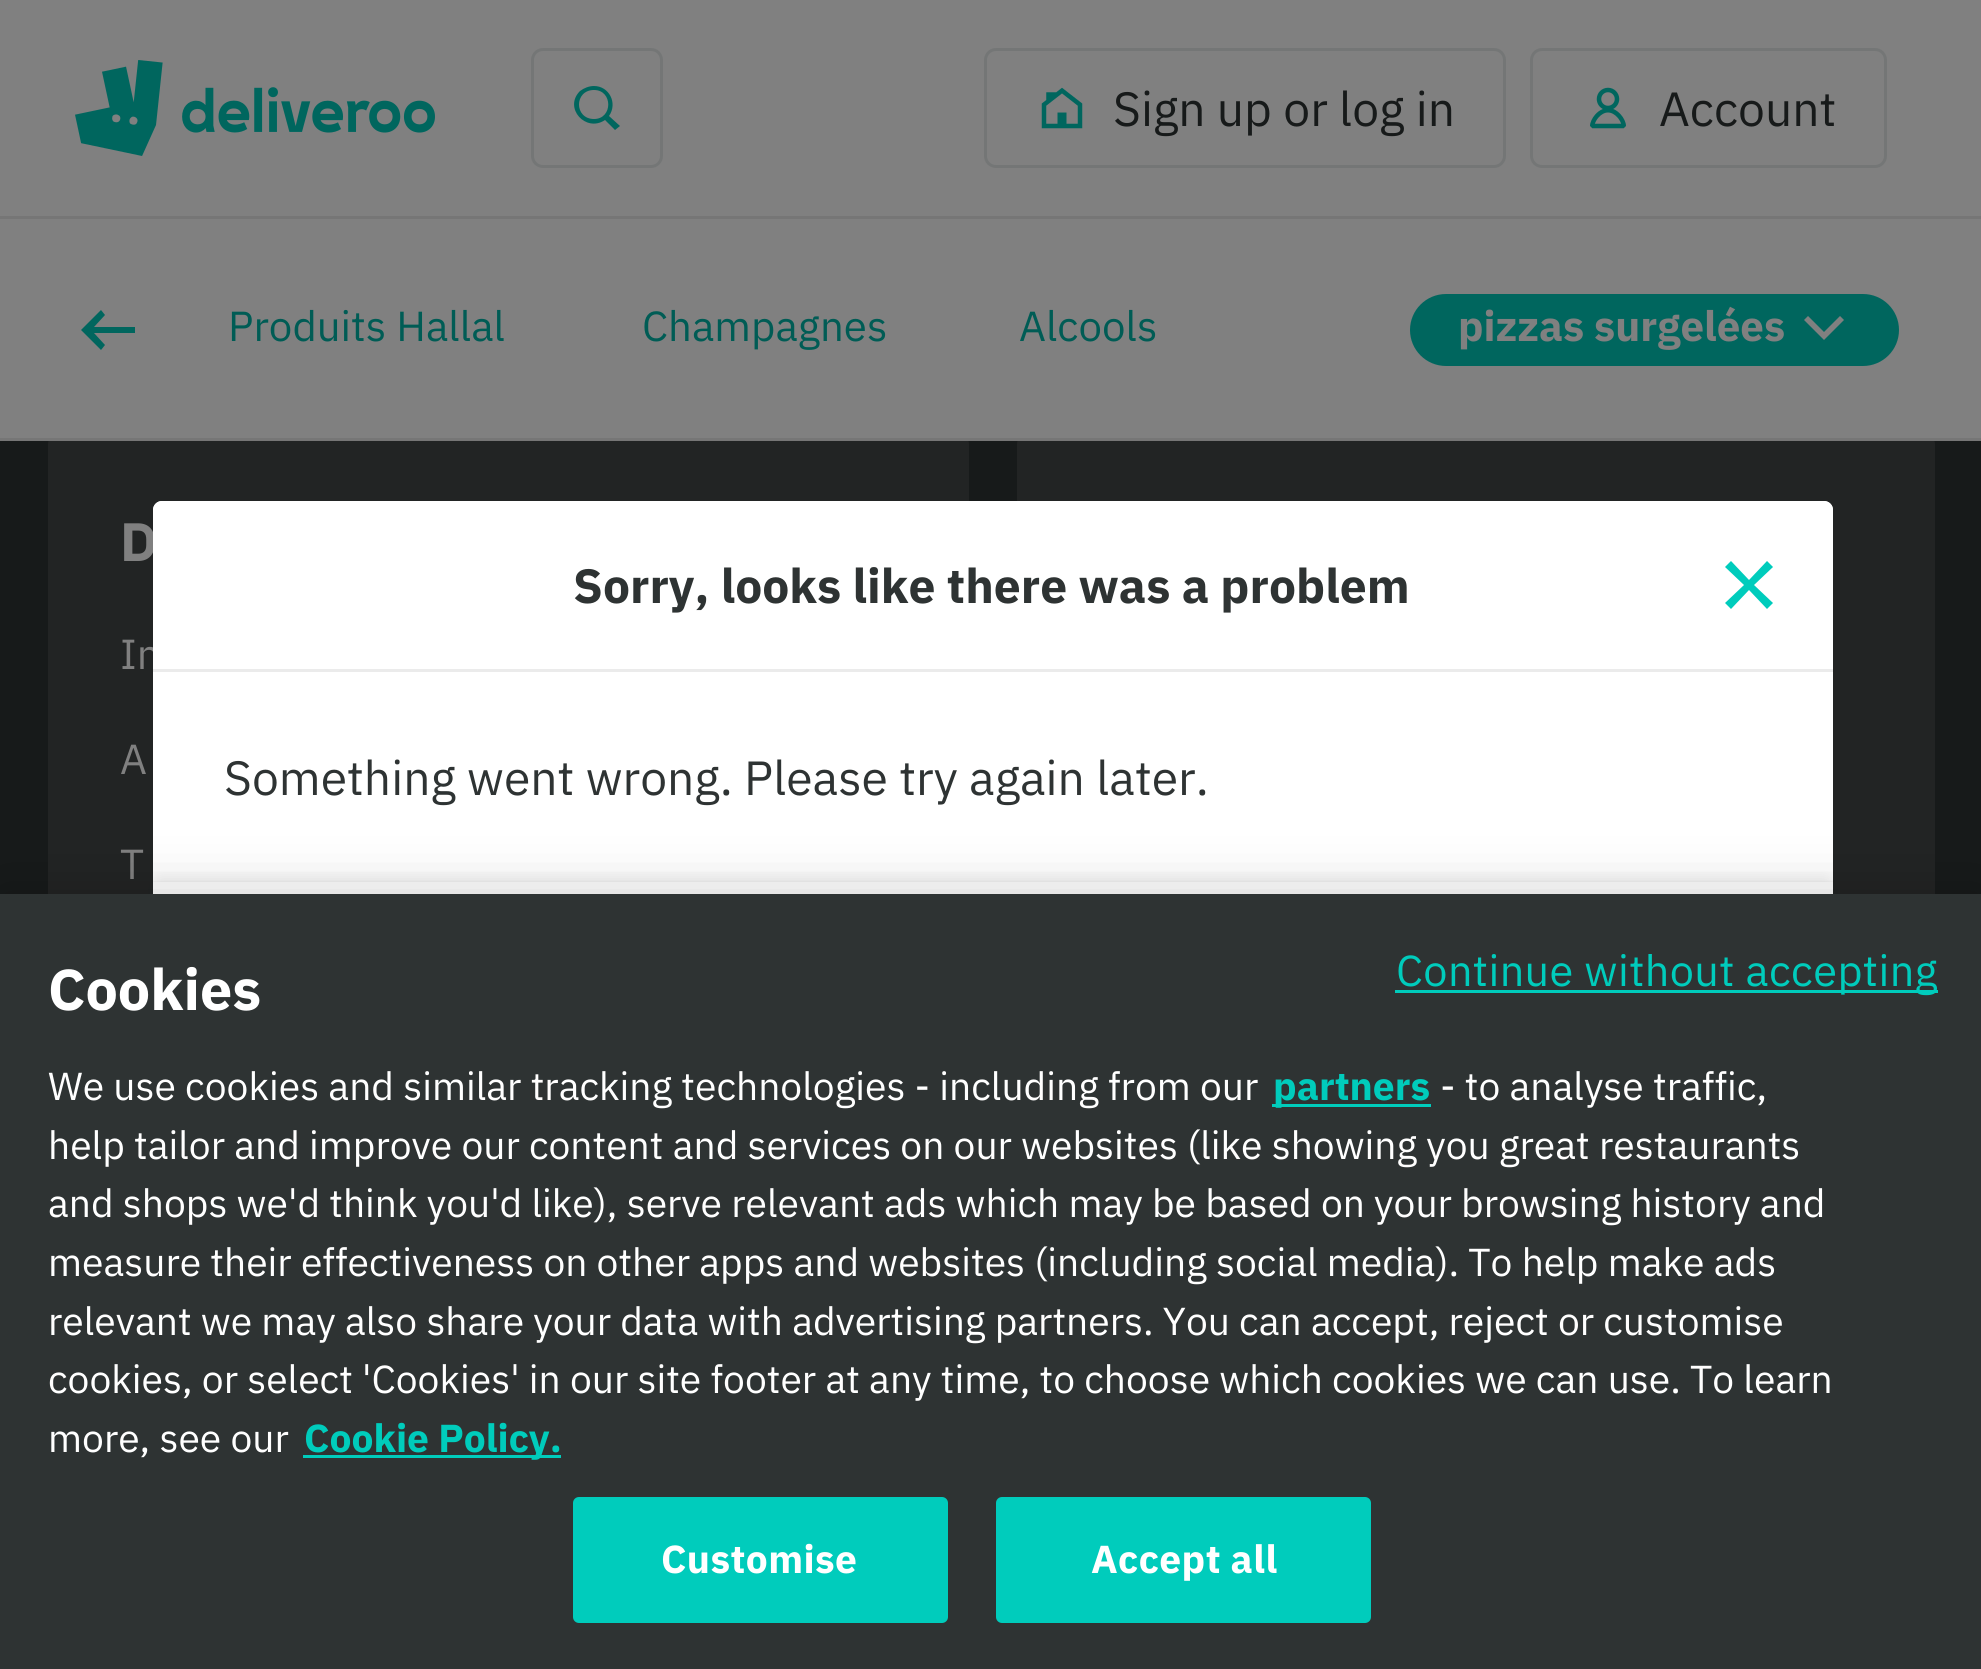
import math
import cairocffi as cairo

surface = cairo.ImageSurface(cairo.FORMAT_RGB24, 1981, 1669)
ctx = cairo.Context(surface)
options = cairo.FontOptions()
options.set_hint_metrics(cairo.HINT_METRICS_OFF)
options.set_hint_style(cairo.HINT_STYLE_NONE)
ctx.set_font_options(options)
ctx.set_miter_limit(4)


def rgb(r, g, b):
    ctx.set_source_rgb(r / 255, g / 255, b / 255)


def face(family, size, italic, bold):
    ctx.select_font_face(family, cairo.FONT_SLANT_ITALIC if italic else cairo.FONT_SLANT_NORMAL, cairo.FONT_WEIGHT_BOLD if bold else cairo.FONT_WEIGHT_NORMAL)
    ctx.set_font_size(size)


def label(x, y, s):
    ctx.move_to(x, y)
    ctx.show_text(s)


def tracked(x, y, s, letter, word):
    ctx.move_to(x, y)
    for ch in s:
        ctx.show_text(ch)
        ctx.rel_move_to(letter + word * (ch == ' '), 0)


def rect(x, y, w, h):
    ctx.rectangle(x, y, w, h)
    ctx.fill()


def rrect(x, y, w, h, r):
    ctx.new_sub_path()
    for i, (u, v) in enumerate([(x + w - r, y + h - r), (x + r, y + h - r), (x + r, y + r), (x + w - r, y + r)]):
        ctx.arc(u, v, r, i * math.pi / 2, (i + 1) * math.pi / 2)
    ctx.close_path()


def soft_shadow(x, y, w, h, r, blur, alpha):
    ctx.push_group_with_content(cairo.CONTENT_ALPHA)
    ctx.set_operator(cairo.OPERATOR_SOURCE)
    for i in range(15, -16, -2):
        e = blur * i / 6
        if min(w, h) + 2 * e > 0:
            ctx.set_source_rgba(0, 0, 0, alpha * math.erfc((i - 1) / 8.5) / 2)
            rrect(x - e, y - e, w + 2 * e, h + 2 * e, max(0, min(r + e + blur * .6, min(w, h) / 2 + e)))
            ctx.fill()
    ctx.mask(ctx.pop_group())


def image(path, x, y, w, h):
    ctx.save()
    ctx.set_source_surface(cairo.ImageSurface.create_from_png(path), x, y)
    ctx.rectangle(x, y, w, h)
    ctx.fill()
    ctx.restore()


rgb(23, 26, 26)
ctx.paint()
rgb(128, 128, 128)
rect(0, 0, 1981, 216)
rgb(118, 118, 118)
rect(0, 216, 1981, 3)
image('image0.png', 75, 60, 360, 96)
rrect(532.5, 49.5, 129, 117, 10.5)
rgb(116, 118, 118)
ctx.set_line_width(3)
ctx.stroke()
rgb(0, 102, 94)
ctx.new_path()
ctx.move_to(594, 119)
ctx.curve_to(613, 119, 613, 90, 594, 90)
ctx.curve_to(574, 90, 574, 119, 594, 119)
ctx.close_path()
ctx.move_to(594, 86)
ctx.curve_to(609, 86, 618, 103, 609, 116)
ctx.line_to(620, 126)
ctx.line_to(615, 130)
ctx.line_to(605, 120)
ctx.curve_to(586, 133, 563, 108, 580, 91)
ctx.curve_to(584, 88, 589, 86, 594, 86)
ctx.close_path()
ctx.fill()
rrect(985.5, 49.5, 519, 117, 10.5)
rgb(116, 118, 118)
ctx.stroke()
image('image1.png', 1041, 87, 42, 42)
face('IBM Plex Sans', 48, 0, 0)
rgb(23, 26, 26)
label(1113, 126, 'Sign up or log in')
rrect(1531.5, 49.5, 354, 117, 10.5)
rgb(116, 118, 118)
ctx.stroke()
image('image2.png', 1590, 87, 36, 42)
rgb(23, 26, 26)
label(1659, 126, 'Account')
rgb(34, 36, 36)
rrect(48, 435, 921, 1161, 9)
ctx.fill()
rrect(1017, 435, 918, 1161, 9)
ctx.fill()
rgb(128, 128, 128)
rect(0, 219, 1981, 219)
rgb(118, 118, 118)
rect(0, 438, 1981, 3)
rgb(0, 102, 94)
ctx.new_path()
ctx.move_to(101, 310)
ctx.line_to(105, 315)
ctx.line_to(94, 327)
ctx.line_to(135, 327)
ctx.line_to(135, 333)
ctx.line_to(94, 333)
ctx.line_to(105, 345)
ctx.line_to(101, 350)
ctx.line_to(81, 330)
ctx.close_path()
ctx.fill()
face('IBM Plex Sans', 42, 0, 0)
rgb(0, 92, 85)
label(228, 341, 'Produits Hallal')
label(642, 341, 'Champagnes')
label(1019, 341, 'Alcools')
rgb(0, 102, 94)
rrect(1410, 294, 489, 72, 36)
ctx.fill()
face('IBM Plex Sans', 42, 0, 1)
rgb(128, 128, 128)
label(1458, 341, 'pizzas surgelées')
ctx.new_path()
ctx.move_to(1808, 316)
ctx.line_to(1804, 320)
ctx.line_to(1824, 340)
ctx.line_to(1844, 320)
ctx.line_to(1840, 316)
ctx.line_to(1824, 332)
ctx.close_path()
ctx.fill()
face('IBM Plex Sans', 54, 0, 1)
label(120, 561, 'D')
face('IBM Plex Sans', 42, 0, 0)
label(120, 669, 'In')
label(120, 774, 'A')
label(120, 879, 'T')
rgb(255, 255, 255)
rrect(153, 501, 1680, 669, 9)
ctx.fill()
ctx.new_path()
ctx.move_to(162, 501)
ctx.line_to(1824, 501)
ctx.curve_to(1829, 501, 1833, 505, 1833, 510)
ctx.line_to(1833, 672)
ctx.line_to(153, 672)
ctx.line_to(153, 510)
ctx.curve_to(153, 505, 157, 501, 162, 501)
ctx.close_path()
ctx.fill()
rgb(235, 235, 235)
rect(153, 669, 1680, 3)
face('IBM Plex Sans', 48, 0, 1)
rgb(46, 51, 51)
label(573, 603, 'Sorry, looks like there was a problem')
rgb(0, 204, 188)
ctx.new_path()
ctx.move_to(1749, 580)
ctx.line_to(1731, 561)
ctx.line_to(1725, 567)
ctx.line_to(1744, 585)
ctx.line_to(1725, 603)
ctx.line_to(1731, 609)
ctx.line_to(1749, 590)
ctx.line_to(1767, 609)
ctx.line_to(1773, 603)
ctx.line_to(1754, 585)
ctx.line_to(1773, 567)
ctx.line_to(1767, 561)
ctx.close_path()
ctx.fill()
face('IBM Plex Sans', 48, 0, 0)
rgb(46, 51, 51)
label(224, 795, 'Something went wrong. Please try again later.')
rgb(0, 0, 0)
soft_shadow(153, 879, 1680, 288, 9, 6, 0.08)
rgb(255, 255, 255)
rect(153, 882, 1680, 12)
rgb(0, 0, 0)
soft_shadow(0, 894, 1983, 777, 0, 27, 0.2)
rgb(46, 51, 51)
rect(0, 894, 1981, 775)
rgb(0, 204, 188)
rect(1395, 990, 543, 3)
face('IBM Plex Sans', 43.25, 0, 0)
tracked(1396, 986, 'Continue without accepting', 0.4, 0)
face('IBM Plex Sans', 57.5, 0, 1)
rgb(255, 255, 255)
label(48, 1010, 'Cookies')
face('IBM Plex Sans', 39, 0, 0)
label(48, 1100, 'We use cookies and similar tracking technologies - including from our')
rgb(0, 204, 188)
rect(1272, 1104, 159, 3)
face('IBM Plex Sans', 39, 0, 1)
label(1273, 1100, 'partners')
face('IBM Plex Sans', 39, 0, 0)
rgb(255, 255, 255)
label(1440, 1100, '- to analyse traffic,')
label(48, 1159, 'help tailor and improve our content and services on our websites (like showing you great restaurants')
label(48, 1217, 'and shops we\'d think you\'d like), serve relevant ads which may be based on your browsing history and')
label(48, 1276, 'measure their effectiveness on other apps and websites (including social media). To help make ads')
label(48, 1335, 'relevant we may also share your data with advertising partners. You can accept, reject or customise')
label(48, 1393, 'cookies, or select \'Cookies\' in our site footer at any time, to choose which cookies we can use. To learn')
label(48, 1452, 'more, see our')
rgb(0, 204, 188)
rect(303, 1455, 258, 3)
face('IBM Plex Sans', 39, 0, 1)
label(304, 1452, 'Cookie Policy.')
rrect(574.5, 1498.5, 372, 123, 4.5)
ctx.fill_preserve()
ctx.stroke()
rgb(255, 255, 255)
tracked(661, 1573, 'Customise', 0.4, 0)
rgb(0, 204, 188)
rrect(997.5, 1498.5, 372, 123, 4.5)
ctx.fill_preserve()
ctx.stroke()
rgb(255, 255, 255)
tracked(1091, 1573, 'Accept all', 0.4, 0)
surface.write_to_png('render.png')
